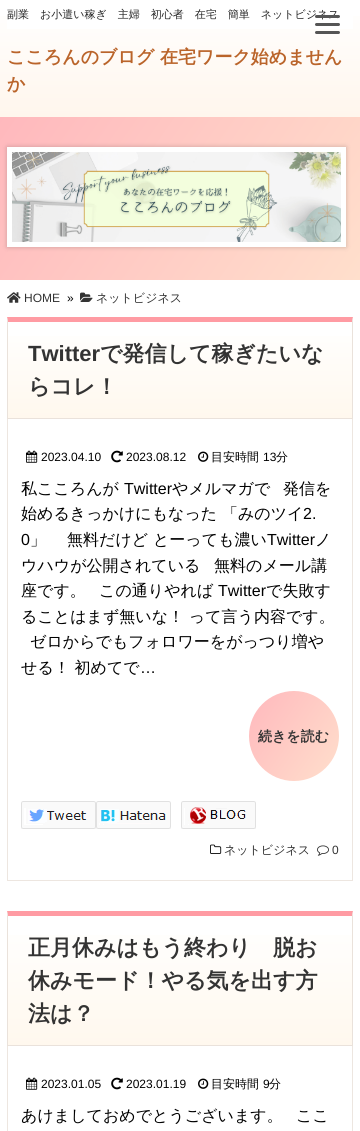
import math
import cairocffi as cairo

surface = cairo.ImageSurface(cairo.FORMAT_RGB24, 360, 1131)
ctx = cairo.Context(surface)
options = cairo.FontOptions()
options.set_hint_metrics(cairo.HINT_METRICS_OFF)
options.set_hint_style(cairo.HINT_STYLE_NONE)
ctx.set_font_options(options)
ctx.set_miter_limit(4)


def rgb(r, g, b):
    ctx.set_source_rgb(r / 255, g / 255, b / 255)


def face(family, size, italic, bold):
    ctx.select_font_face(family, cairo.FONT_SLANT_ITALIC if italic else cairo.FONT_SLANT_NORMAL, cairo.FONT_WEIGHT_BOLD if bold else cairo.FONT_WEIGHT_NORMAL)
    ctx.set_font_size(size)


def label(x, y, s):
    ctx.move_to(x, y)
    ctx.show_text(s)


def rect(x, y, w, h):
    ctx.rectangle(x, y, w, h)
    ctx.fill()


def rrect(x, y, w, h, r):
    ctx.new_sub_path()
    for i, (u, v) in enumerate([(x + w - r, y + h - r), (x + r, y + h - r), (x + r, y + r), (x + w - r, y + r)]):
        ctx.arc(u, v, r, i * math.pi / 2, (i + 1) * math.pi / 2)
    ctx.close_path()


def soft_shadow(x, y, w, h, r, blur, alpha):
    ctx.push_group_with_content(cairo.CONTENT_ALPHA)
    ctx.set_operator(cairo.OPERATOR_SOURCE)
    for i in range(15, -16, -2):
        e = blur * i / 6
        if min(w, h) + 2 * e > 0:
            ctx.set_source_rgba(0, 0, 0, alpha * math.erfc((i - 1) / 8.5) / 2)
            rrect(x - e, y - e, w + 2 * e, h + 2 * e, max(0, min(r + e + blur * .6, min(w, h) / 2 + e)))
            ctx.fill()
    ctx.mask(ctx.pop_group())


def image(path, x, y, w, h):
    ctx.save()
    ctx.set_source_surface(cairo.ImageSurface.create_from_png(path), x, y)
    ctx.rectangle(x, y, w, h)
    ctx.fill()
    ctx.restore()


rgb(255, 255, 255)
ctx.paint()
gradient = cairo.LinearGradient(180, 0, 180, 117)
gradient.add_color_stop_rgba(0, 1, 1, 1, 1)
gradient.add_color_stop_rgba(1, 1, 0.965, 0.929, 1)
ctx.set_source(gradient)
rect(0, 16, 360, 101)
rgb(255, 255, 255)
rect(7, 16, 346, 13)
face('WenQuanYi Zen Hei Medium', 11, 0, 0)
rgb(37, 37, 37)
label(7, 18, '副業　お小遣い稼ぎ　主婦　初心者　在宅　簡単　ネットビジネス')
face('WenQuanYi Zen Hei', 18, 0, 1)
rgb(186, 100, 42)
label(7, 63, 'こころんのブログ')
label(160, 63, '在宅ワーク始めません')
label(7, 90, 'か')
rgb(85, 85, 85)
rrect(315, 15, 25, 3, 1.5)
ctx.fill()
rrect(315, 23, 25, 3, 1.5)
ctx.fill()
rrect(315, 31, 25, 3, 1.5)
ctx.fill()
gradient = cairo.LinearGradient(21, 87, 339, 310)
gradient.add_color_stop_rgba(0, 1, 0.722, 0.741, 1)
gradient.add_color_stop_rgba(1, 1, 0.875, 0.8, 1)
ctx.set_source(gradient)
rect(0, 117, 360, 163)
rgb(0, 0, 0)
soft_shadow(7, 147, 339, 100, 0, 2.5, 0.2)
ctx.rectangle(9.5, 149.5, 334, 95)
rgb(255, 255, 255)
ctx.set_line_width(5)
ctx.stroke()
image('image0.png', 12, 152, 329, 90)
image('image1.png', 7, 292, 14, 11)
face('Liberation Sans', 12, 0, 0)
rgb(51, 51, 51)
label(24, 302, 'HOME')
rgb(0, 0, 0)
label(67, 302, '»')
image('image2.png', 80, 292, 13, 10)
face('WenQuanYi Zen Hei Medium', 12, 0, 0)
rgb(51, 51, 51)
label(96, 302, 'ネットビジネス')
gradient = cairo.LinearGradient(180, 322, 180, 418)
gradient.add_color_stop_rgba(0, 1, 1, 1, 1)
gradient.add_color_stop_rgba(1, 1, 0.973, 0.933, 1)
ctx.set_source(gradient)
rect(8, 336, 344, 82)
rgb(255, 155, 163)
ctx.new_path()
ctx.move_to(7, 317)
ctx.line_to(353, 317)
ctx.line_to(352, 322)
ctx.line_to(8, 322)
ctx.close_path()
ctx.fill()
rgb(234, 226, 219)
ctx.new_path()
ctx.move_to(353, 317)
ctx.line_to(353, 419)
ctx.line_to(352, 418)
ctx.line_to(352, 322)
ctx.close_path()
ctx.fill()
rect(7, 418, 346, 1)
ctx.new_path()
ctx.move_to(7, 419)
ctx.line_to(7, 317)
ctx.line_to(8, 322)
ctx.line_to(8, 418)
ctx.close_path()
ctx.fill()
face('Liberation Sans', 22, 0, 1)
rgb(51, 51, 51)
label(28, 361, 'Twitter')
face('WenQuanYi Zen Hei', 22, 0, 1)
label(100, 361, 'で発信して稼ぎたいな')
label(28, 394, 'らコレ！')
rgb(237, 230, 224)
rect(352, 419, 1, 462)
rect(7, 880, 346, 1)
rect(7, 419, 1, 462)
image('image3.png', 26, 450, 12, 13)
face('Liberation Sans', 12, 0, 0)
rgb(0, 0, 0)
label(41, 461, '2023.04.10')
image('image4.png', 111, 450, 12, 13)
label(126, 461, '2023.08.12')
image('image5.png', 198, 451, 11, 11)
face('WenQuanYi Zen Hei Medium', 12, 0, 0)
label(211, 461, '目安時間')
face('Liberation Sans', 12, 0, 0)
label(263, 461, '13')
face('WenQuanYi Zen Hei Medium', 12, 0, 0)
label(276, 461, '分')
face('WenQuanYi Zen Hei Medium', 16, 0, 0)
label(21, 494, '私こころんが')
face('Liberation Sans', 16, 0, 0)
label(124, 494, 'Twitter')
face('WenQuanYi Zen Hei Medium', 16, 0, 0)
label(172, 494, 'やメルマガで')
label(283, 494, '発信を')
label(21, 519, '始めるきっかけにもなった 「みのツイ')
face('Liberation Sans', 16, 0, 0)
label(303, 519, '2.')
label(21, 545, '0')
face('WenQuanYi Zen Hei Medium', 16, 0, 0)
label(30, 545, '」')
label(67, 545, '無料だけど とーっても濃い')
face('Liberation Sans', 16, 0, 0)
label(267, 545, 'Twitter')
face('WenQuanYi Zen Hei Medium', 16, 0, 0)
label(315, 545, 'ノ')
label(21, 571, 'ウハウが公開されている')
label(214, 571, '無料のメール講')
label(21, 596, '座です。')
label(99, 596, 'この通りやれば')
face('Liberation Sans', 16, 0, 0)
label(218, 596, 'Twitter')
face('WenQuanYi Zen Hei Medium', 16, 0, 0)
label(266, 596, 'で失敗す')
label(21, 622, 'ることはまず無いな！ って言う内容です。')
label(30, 647, 'ゼロからでもフォロワーをがっつり増や')
label(21, 673, 'せる！ 初めてで')
face('Liberation Sans', 16, 0, 0)
label(140, 673, '…')
gradient = cairo.LinearGradient(243, 700, 345, 772)
gradient.add_color_stop_rgba(0, 1, 0.722, 0.741, 1)
gradient.add_color_stop_rgba(1, 1, 0.875, 0.8, 1)
ctx.set_source(gradient)
ctx.new_path()
ctx.arc(294, 736, 45, 0, 2 * math.pi)
ctx.fill()
face('WenQuanYi Zen Hei', 14, 0, 1)
rgb(51, 51, 51)
label(258, 741, '続きを読む')
image('image6.png', 21, 801, 75, 28)
image('image7.png', 96, 801, 75, 28)
image('image8.png', 181, 801, 75, 28)
image('image9.png', 210, 844, 12, 10)
face('WenQuanYi Zen Hei Medium', 12, 0, 0)
label(224, 854, 'ネットビジネス')
image('image10.png', 317, 845, 12, 11)
face('Liberation Sans', 12, 0, 0)
label(332, 854, '0')
gradient = cairo.LinearGradient(180, 916, 180, 1045)
gradient.add_color_stop_rgba(0, 1, 1, 1, 1)
gradient.add_color_stop_rgba(1, 1, 0.973, 0.933, 1)
ctx.set_source(gradient)
rect(8, 935, 344, 110)
rgb(255, 155, 163)
ctx.new_path()
ctx.move_to(7, 911)
ctx.line_to(353, 911)
ctx.line_to(352, 916)
ctx.line_to(8, 916)
ctx.close_path()
ctx.fill()
rgb(234, 226, 219)
ctx.new_path()
ctx.move_to(353, 911)
ctx.line_to(353, 1046)
ctx.line_to(352, 1045)
ctx.line_to(352, 916)
ctx.close_path()
ctx.fill()
rect(7, 1045, 346, 1)
ctx.new_path()
ctx.move_to(7, 1046)
ctx.line_to(7, 911)
ctx.line_to(8, 916)
ctx.line_to(8, 1045)
ctx.close_path()
ctx.fill()
face('WenQuanYi Zen Hei', 22, 0, 1)
rgb(51, 51, 51)
label(28, 955, '正月休みはもう終わり　脱お')
label(28, 988, '休みモード！やる気を出す方')
label(28, 1021, '法は？')
rgb(237, 230, 224)
rect(352, 1046, 1, 85)
rect(7, 1046, 1, 85)
image('image3.png', 26, 1077, 12, 13)
face('Liberation Sans', 12, 0, 0)
rgb(0, 0, 0)
label(41, 1088, '2023.01.05')
image('image4.png', 111, 1077, 12, 13)
label(126, 1088, '2023.01.19')
image('image5.png', 198, 1078, 11, 11)
face('WenQuanYi Zen Hei Medium', 12, 0, 0)
label(211, 1088, '目安時間')
face('Liberation Sans', 12, 0, 0)
label(263, 1088, '9')
face('WenQuanYi Zen Hei Medium', 12, 0, 0)
label(269, 1088, '分')
face('WenQuanYi Zen Hei Medium', 16, 0, 0)
label(21, 1121, 'あけましておめでとうございます。')
label(296, 1121, 'ここ')
surface.write_to_png('render.png')
